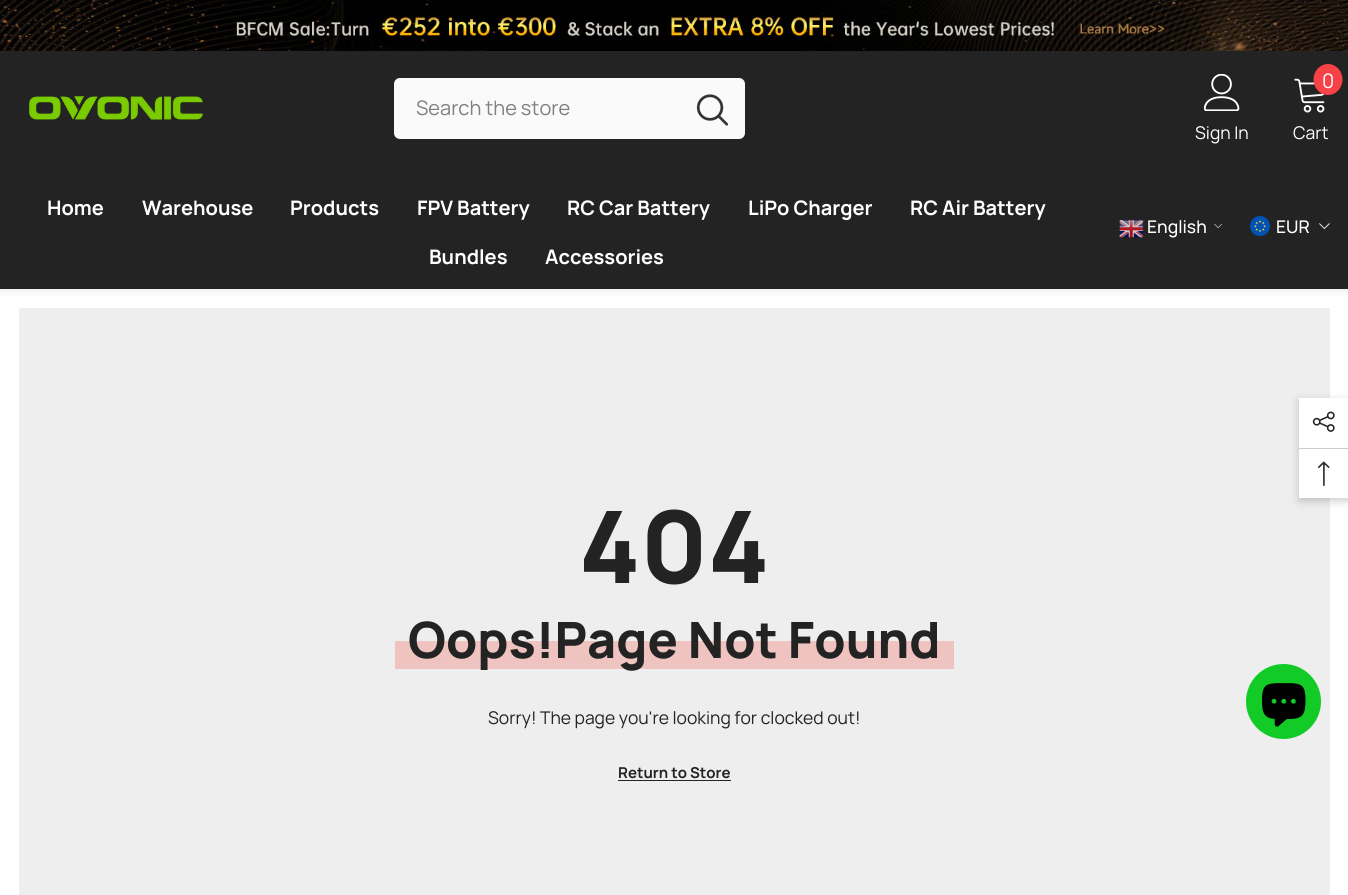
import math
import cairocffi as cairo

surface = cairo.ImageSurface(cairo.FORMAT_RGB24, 1348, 895)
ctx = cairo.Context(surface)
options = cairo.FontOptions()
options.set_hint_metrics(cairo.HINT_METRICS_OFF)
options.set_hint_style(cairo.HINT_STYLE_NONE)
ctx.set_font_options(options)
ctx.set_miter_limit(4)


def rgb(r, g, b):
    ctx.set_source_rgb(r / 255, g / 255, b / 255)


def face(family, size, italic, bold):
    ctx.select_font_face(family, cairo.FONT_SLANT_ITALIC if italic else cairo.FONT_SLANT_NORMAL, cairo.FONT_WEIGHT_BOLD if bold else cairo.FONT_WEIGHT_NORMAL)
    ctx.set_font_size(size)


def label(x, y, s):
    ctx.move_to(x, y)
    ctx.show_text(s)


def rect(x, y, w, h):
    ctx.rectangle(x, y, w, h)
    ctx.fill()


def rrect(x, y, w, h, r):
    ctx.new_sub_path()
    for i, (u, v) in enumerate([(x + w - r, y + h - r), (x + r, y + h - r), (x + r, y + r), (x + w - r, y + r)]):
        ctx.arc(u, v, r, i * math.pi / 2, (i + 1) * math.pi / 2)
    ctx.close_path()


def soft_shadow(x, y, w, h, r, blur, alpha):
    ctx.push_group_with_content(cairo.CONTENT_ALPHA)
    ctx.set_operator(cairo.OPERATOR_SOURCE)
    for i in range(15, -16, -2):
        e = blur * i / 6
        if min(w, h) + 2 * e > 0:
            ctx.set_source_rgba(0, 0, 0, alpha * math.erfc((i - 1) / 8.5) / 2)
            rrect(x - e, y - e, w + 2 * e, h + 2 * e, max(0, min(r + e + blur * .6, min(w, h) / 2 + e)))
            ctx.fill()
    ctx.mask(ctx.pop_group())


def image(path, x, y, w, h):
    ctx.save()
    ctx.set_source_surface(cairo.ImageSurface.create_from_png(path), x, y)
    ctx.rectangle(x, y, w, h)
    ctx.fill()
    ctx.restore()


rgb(255, 255, 255)
ctx.paint()
image('image0.png', 0, 0, 1348, 51)
rgb(0, 0, 0)
soft_shadow(0, 165, 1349, 125, 0, 4, 0.1)
rgb(35, 35, 35)
rect(0, 51, 1348, 238)
image('image1.png', 29, 96, 174, 24)
rgb(250, 250, 250)
rrect(394, 78, 351, 61, 6)
ctx.fill()
face('Manrope', 20, 0, 0)
rgb(128, 128, 128)
label(416, 115, 'Search the store')
image('image2.png', 696, 94, 33, 32)
image('image3.png', 1294, 78, 31, 35)
rgb(248, 66, 72)
ctx.new_path()
ctx.move_to(1328, 64)
ctx.curve_to(1336, 64, 1342.5, 71, 1342.5, 79.5)
ctx.curve_to(1342.5, 88, 1336, 95, 1328, 95)
ctx.curve_to(1320, 95, 1313.5, 88, 1313.5, 79.5)
ctx.curve_to(1313.5, 71, 1320, 64, 1328, 64)
ctx.close_path()
ctx.fill()
rgb(255, 255, 255)
label(1322, 88, '0')
face('Manrope', 17.5, 0, 0)
label(1293, 139, 'Cart')
image('image4.png', 1204, 74, 36, 37)
label(1195, 139, 'Sign In')
face('Manrope', 20, 0, 1)
label(47, 215, 'Home')
label(142, 215, 'Warehouse')
label(290, 215, 'Products')
label(417, 215, 'FPV Battery')
label(567, 215, 'RC Car Battery')
label(748, 215, 'LiPo Charger')
label(910, 215, 'RC Air Battery')
label(429, 264, 'Bundles')
label(545, 264, 'Accessories')
image('image5.png', 1119, 220, 25, 18)
face('Manrope Medium', 17.5, 0, 0)
label(1147, 233, 'English')
image('image6.png', 1214, 223, 8, 5)
image('image7.png', 1250, 216, 20, 20)
label(1276, 233, 'EUR')
image('image8.png', 1319, 223, 11, 6)
rgb(238, 238, 238)
rect(19, 308, 1311, 587)
face('Manrope ExtraBold', 100, 0, 0)
rgb(35, 35, 35)
label(579, 583, '404')
rgb(239, 195, 192)
rect(395, 641, 559, 28)
face('Manrope ExtraBold', 50, 0, 0)
rgb(35, 35, 35)
label(408, 658, 'Oops!Page Not Found')
face('Manrope', 17.5, 0, 0)
label(488, 724, 'Sorry! The page you\'re looking for clocked out!')
face('Manrope', 15, 0, 1)
label(618, 778, 'Return to Store')
rect(618, 780, 113, 1)
rgb(0, 0, 0)
soft_shadow(1299, 401, 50, 100, 0, 4.5, 0.2)
rgb(255, 255, 255)
rect(1299, 398, 49, 100)
image('image9.png', 1312, 411, 23, 21)
rgb(204, 204, 204)
rect(1299, 448, 49, 1)
image('image10.png', 1318, 461, 12, 25)
rgb(18, 203, 39)
ctx.arc(1283.5, 701.5, 37.5, 0, 2 * math.pi)
ctx.fill()
image('image11.png', 1262, 683, 44, 44)
surface.write_to_png('render.png')
